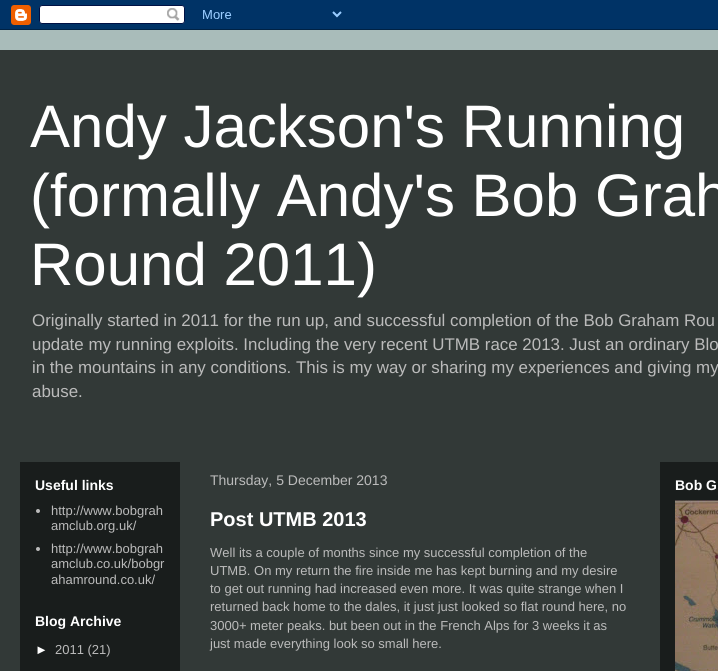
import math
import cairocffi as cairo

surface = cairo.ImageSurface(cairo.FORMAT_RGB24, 718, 671)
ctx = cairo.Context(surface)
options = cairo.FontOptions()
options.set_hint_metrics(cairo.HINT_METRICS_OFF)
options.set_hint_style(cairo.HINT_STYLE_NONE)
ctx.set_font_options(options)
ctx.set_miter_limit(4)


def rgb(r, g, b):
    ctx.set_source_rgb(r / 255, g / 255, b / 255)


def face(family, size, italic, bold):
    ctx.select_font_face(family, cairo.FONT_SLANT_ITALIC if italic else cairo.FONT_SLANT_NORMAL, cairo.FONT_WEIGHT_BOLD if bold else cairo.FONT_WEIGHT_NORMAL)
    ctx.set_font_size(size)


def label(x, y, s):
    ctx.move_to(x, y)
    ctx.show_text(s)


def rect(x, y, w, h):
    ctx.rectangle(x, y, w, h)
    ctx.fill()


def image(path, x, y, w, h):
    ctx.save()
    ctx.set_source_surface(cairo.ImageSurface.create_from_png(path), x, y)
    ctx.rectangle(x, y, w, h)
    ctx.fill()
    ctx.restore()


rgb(169, 188, 186)
ctx.paint()
image('image0.png', 0, 0, 718, 30)
rgb(50, 57, 55)
rect(0, 50, 718, 621)
face('Liberation Sans', 60, 0, 0)
rgb(255, 255, 255)
label(30, 147, 'Andy Jackson\'s Running')
label(30, 216, '(formally Andy\'s Bob Grah')
label(30, 285, 'Round 2011)')
face('Liberation Sans', 16.9, 0, 0)
rgb(187, 187, 187)
label(32, 326, 'Originally started in 2011 for the run up, and successful completion of the Bob Graham Rou')
label(32, 350, 'update my running exploits. Including the very recent UTMB race 2013. Just an ordinary Blo')
label(32, 373, 'in the mountains in any conditions. This is my way or sharing my experiences and giving my')
label(32, 397, 'abuse.')
rgb(25, 29, 28)
rect(20, 462, 160, 209)
rect(660, 462, 58, 209)
face('Liberation Sans', 14, 0, 1)
rgb(255, 255, 255)
label(35, 490, 'Useful links')
rgb(187, 187, 187)
ctx.new_path()
ctx.arc(38, 511, 2, 0, 2 * math.pi)
ctx.fill()
face('Liberation Sans', 13, 0, 0)
label(51, 515, 'http://www.bobgrah')
label(51, 530, 'amclub.org.uk/')
ctx.new_path()
ctx.arc(38, 549, 2, 0, 2 * math.pi)
ctx.fill()
label(51, 553, 'http://www.bobgrah')
label(51, 568, 'amclub.co.uk/bobgr')
label(51, 584, 'ahamround.co.uk/')
face('Liberation Sans', 14, 0, 1)
rgb(255, 255, 255)
label(35, 626, 'Blog Archive')
face('Liberation Sans', 13, 0, 0)
label(35, 654, '►')
rgb(187, 187, 187)
label(55, 654, '2011 (21)')
face('Liberation Sans', 14, 0, 0)
label(210, 485, 'Thursday, 5 December 2013')
face('Liberation Sans', 20, 0, 1)
rgb(255, 255, 255)
label(210, 526, 'Post UTMB 2013')
face('Liberation Sans', 13, 0, 0)
rgb(187, 187, 187)
label(210, 557, 'Well its a couple of months since my successful completion of the')
label(210, 575, 'UTMB. On my return the fire inside me has kept burning and my desire')
label(210, 593, 'to get out running had increased even more. It was quite strange when I')
label(210, 611, 'returned back home to the dales, it just just looked so flat round here, no')
label(210, 630, '3000+ meter peaks. but been out in the French Alps for 3 weeks it as')
label(210, 648, 'just made everything look so small here.')
face('Liberation Sans', 14, 0, 1)
rgb(255, 255, 255)
label(675, 490, 'Bob G')
image('image1.png', 675, 500, 43, 171)
surface.write_to_png('render.png')
